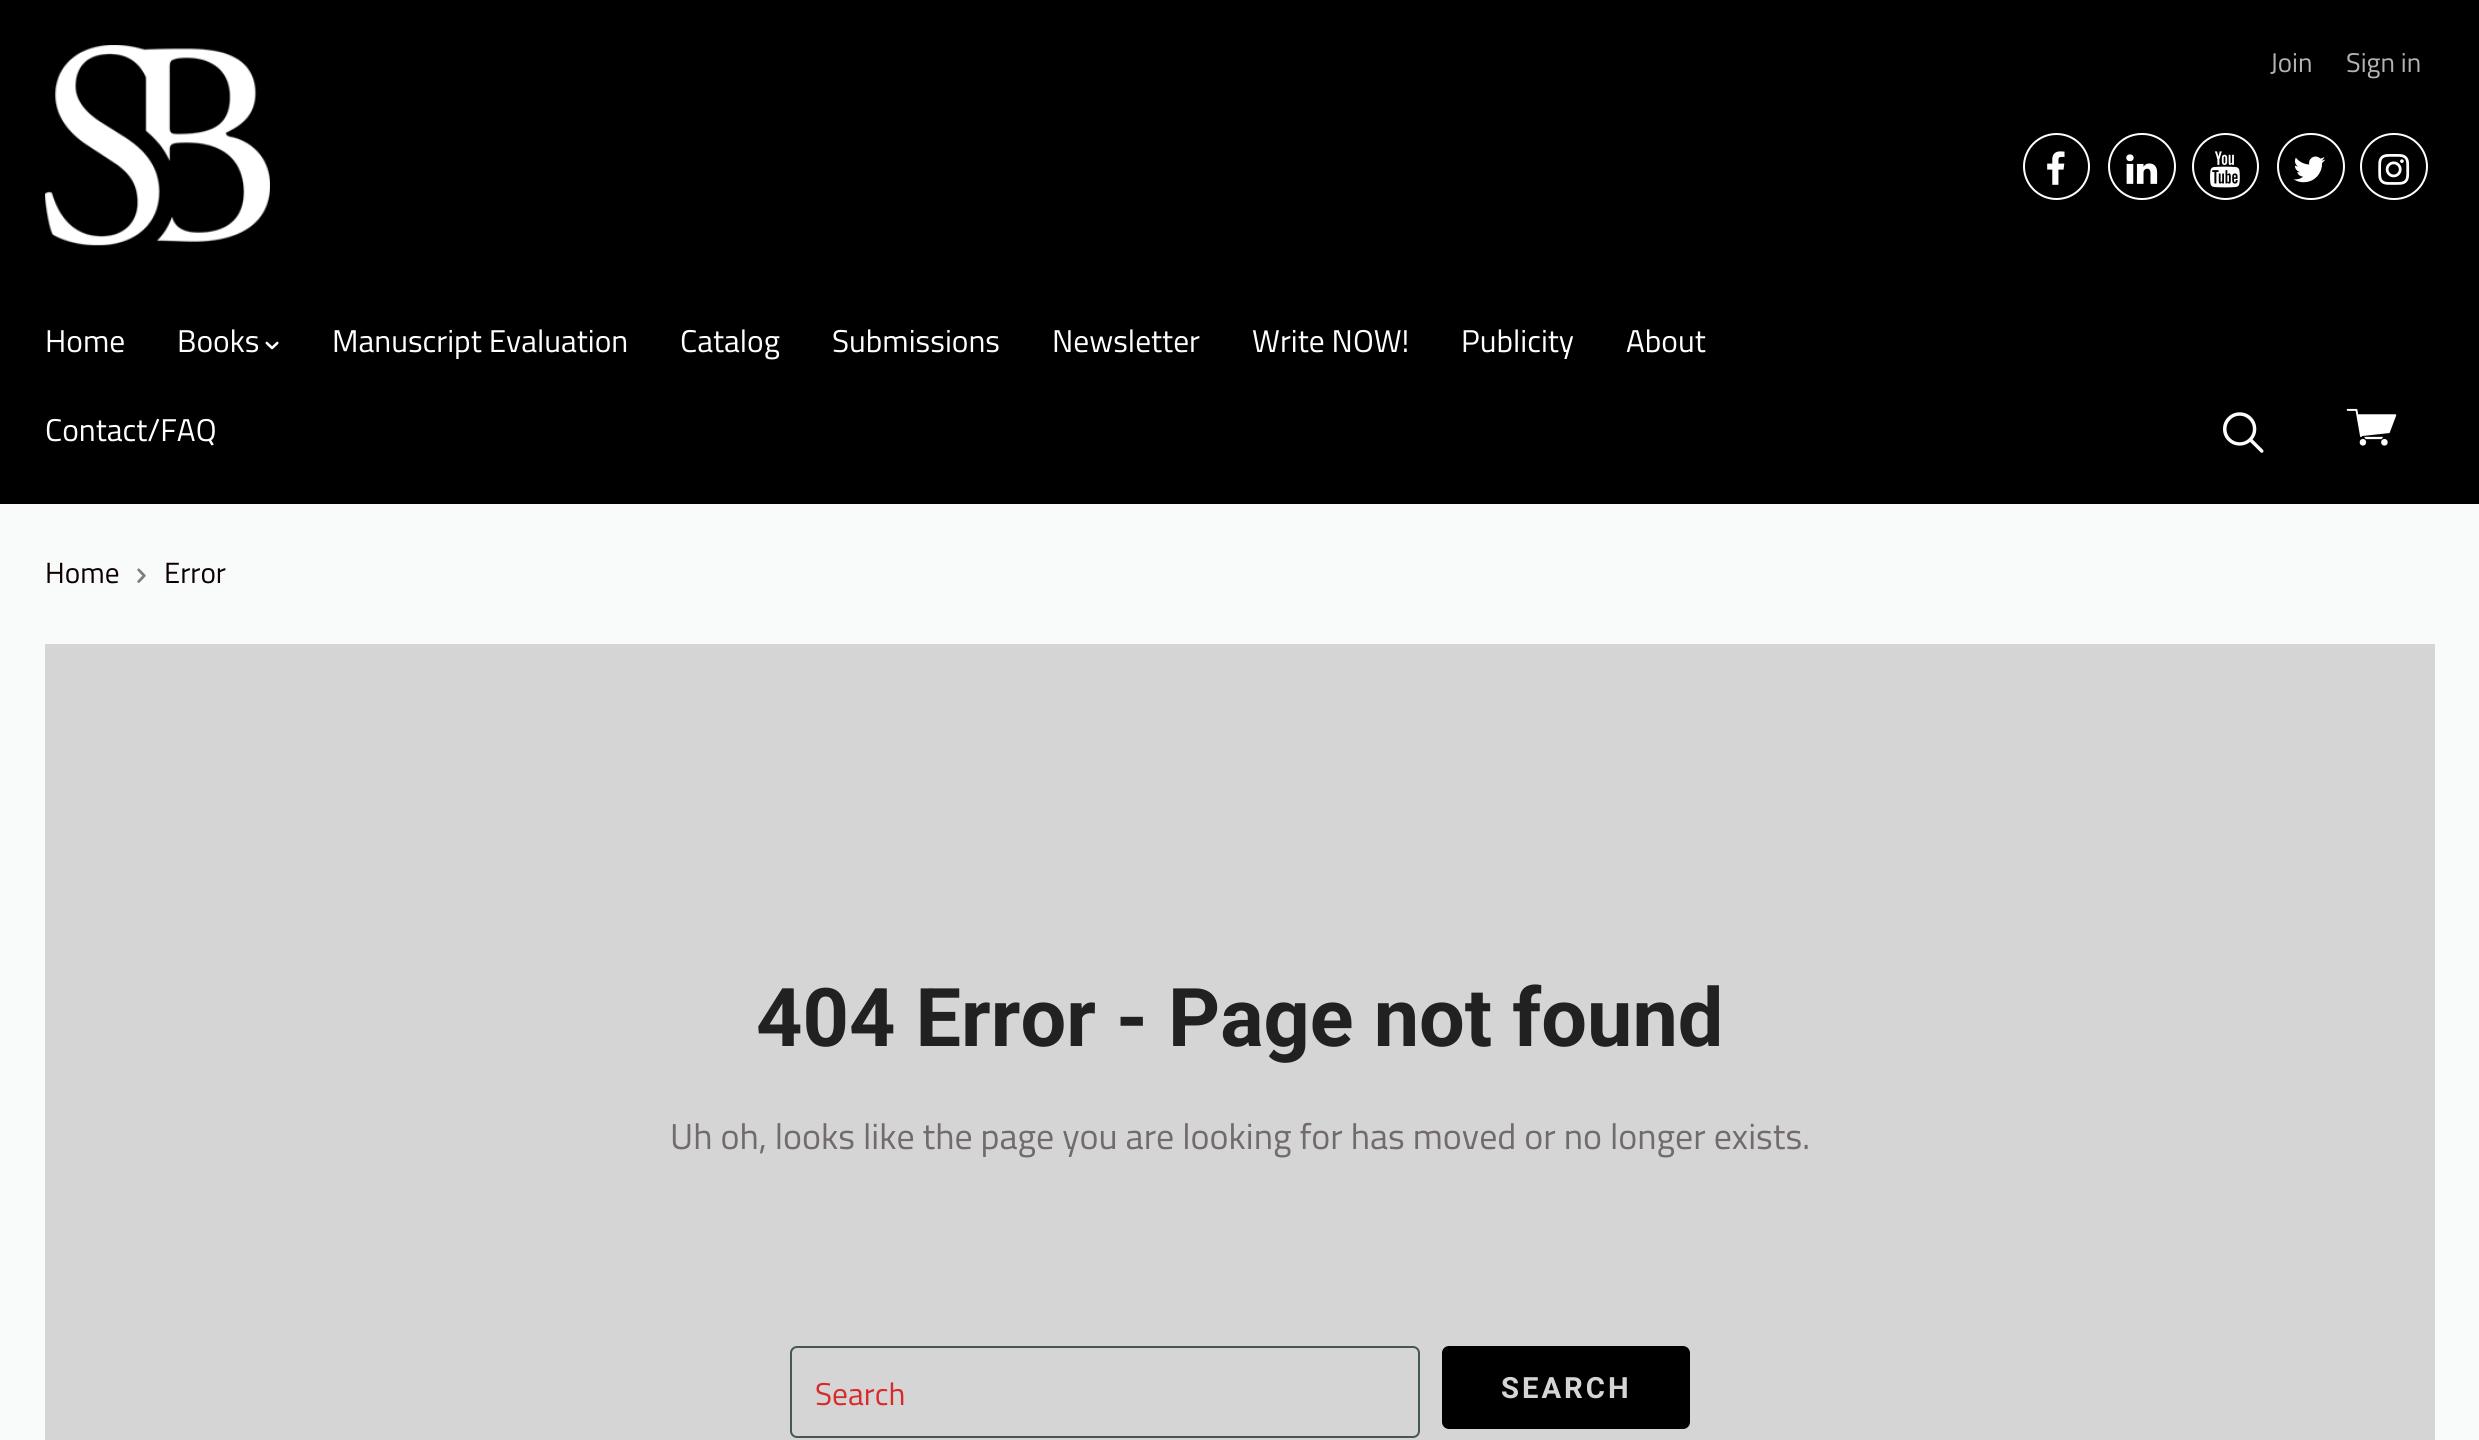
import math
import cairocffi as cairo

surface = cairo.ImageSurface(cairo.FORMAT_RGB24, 2479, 1440)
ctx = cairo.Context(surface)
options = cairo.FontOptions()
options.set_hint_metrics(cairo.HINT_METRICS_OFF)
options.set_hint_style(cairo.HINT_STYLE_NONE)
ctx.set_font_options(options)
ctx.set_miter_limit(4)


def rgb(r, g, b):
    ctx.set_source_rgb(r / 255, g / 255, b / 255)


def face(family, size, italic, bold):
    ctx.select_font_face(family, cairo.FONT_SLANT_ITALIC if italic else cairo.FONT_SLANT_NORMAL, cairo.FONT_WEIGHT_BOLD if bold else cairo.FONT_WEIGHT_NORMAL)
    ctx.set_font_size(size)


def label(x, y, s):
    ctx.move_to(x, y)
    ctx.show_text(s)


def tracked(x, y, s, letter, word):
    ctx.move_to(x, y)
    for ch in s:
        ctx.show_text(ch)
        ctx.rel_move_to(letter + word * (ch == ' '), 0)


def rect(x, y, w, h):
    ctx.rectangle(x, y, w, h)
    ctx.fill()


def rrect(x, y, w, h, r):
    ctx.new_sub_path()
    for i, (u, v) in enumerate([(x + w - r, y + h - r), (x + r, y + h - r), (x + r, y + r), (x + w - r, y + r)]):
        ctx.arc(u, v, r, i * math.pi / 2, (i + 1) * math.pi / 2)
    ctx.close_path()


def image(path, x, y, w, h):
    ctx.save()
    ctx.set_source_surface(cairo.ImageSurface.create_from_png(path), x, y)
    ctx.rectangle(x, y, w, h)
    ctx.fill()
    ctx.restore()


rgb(249, 250, 250)
ctx.paint()
rgb(0, 0, 0)
rect(0, 0, 2479, 504)
image('image0.png', 45, 45, 225, 201)
image('image1.png', 2346, 408, 51, 38)
face('Titillium Web', 27, 0, 0)
rgb(179, 179, 179)
label(2270, 72, 'Join')
label(2346, 72, 'Sign in')
ctx.new_path()
ctx.arc(2056.5, 166.5, 32.5, 0, 2 * math.pi)
rgb(255, 255, 255)
ctx.stroke()
image('image2.png', 2047, 151, 18, 34)
rrect(2109, 134, 66, 65, 32.5)
ctx.stroke()
image('image3.png', 2126, 154, 32, 30)
ctx.arc(2225.5, 166.5, 32.5, 0, 2 * math.pi)
ctx.stroke()
image('image4.png', 2210, 151, 30, 37)
rrect(2278, 134, 66, 65, 32.5)
ctx.stroke()
image('image5.png', 2293, 156, 33, 27)
rrect(2361, 134, 66, 65, 32.5)
ctx.stroke()
image('image6.png', 2378, 154, 32, 31)
face('Titillium Web', 31.5, 0, 0)
label(45, 352, 'Home')
label(177, 352, 'Books')
image('image7.png', 265, 341, 14, 9)
label(332, 352, 'Manuscript Evaluation')
label(680, 352, 'Catalog')
label(832, 352, 'Submissions')
label(1052, 352, 'Newsletter')
label(1252, 352, 'Write NOW!')
label(1461, 352, 'Publicity')
label(1626, 352, 'About')
label(45, 441, 'Contact/FAQ')
image('image8.png', 2223, 412, 41, 41)
face('Titillium Web', 29.25, 0, 0)
rgb(11, 0, 0)
label(45, 583, 'Home')
image('image9.png', 137, 568, 9, 15)
label(164, 583, 'Error')
rgb(214, 213, 213)
rect(45, 644, 2390, 796)
face('Roboto', 81, 0, 1)
rgb(33, 33, 33)
label(756, 1046, '404 Error - Page not found')
face('Titillium Web', 36, 0, 0)
rgb(113, 107, 107)
label(670, 1149, 'Uh oh, looks like the page you are looking for has moved or no longer exists.')
rrect(791, 1347, 628, 90, 6)
rgb(68, 88, 88)
ctx.stroke()
face('Titillium Web', 31.5, 0, 0)
rgb(215, 43, 43)
label(815, 1405, 'Search')
rgb(0, 0, 0)
rrect(1443, 1347, 246, 81, 6)
ctx.fill_preserve()
ctx.stroke()
face('Roboto', 29.25, 0, 1)
rgb(214, 213, 213)
tracked(1501, 1398, 'SEARCH', 3, 0)
surface.write_to_png('render.png')
